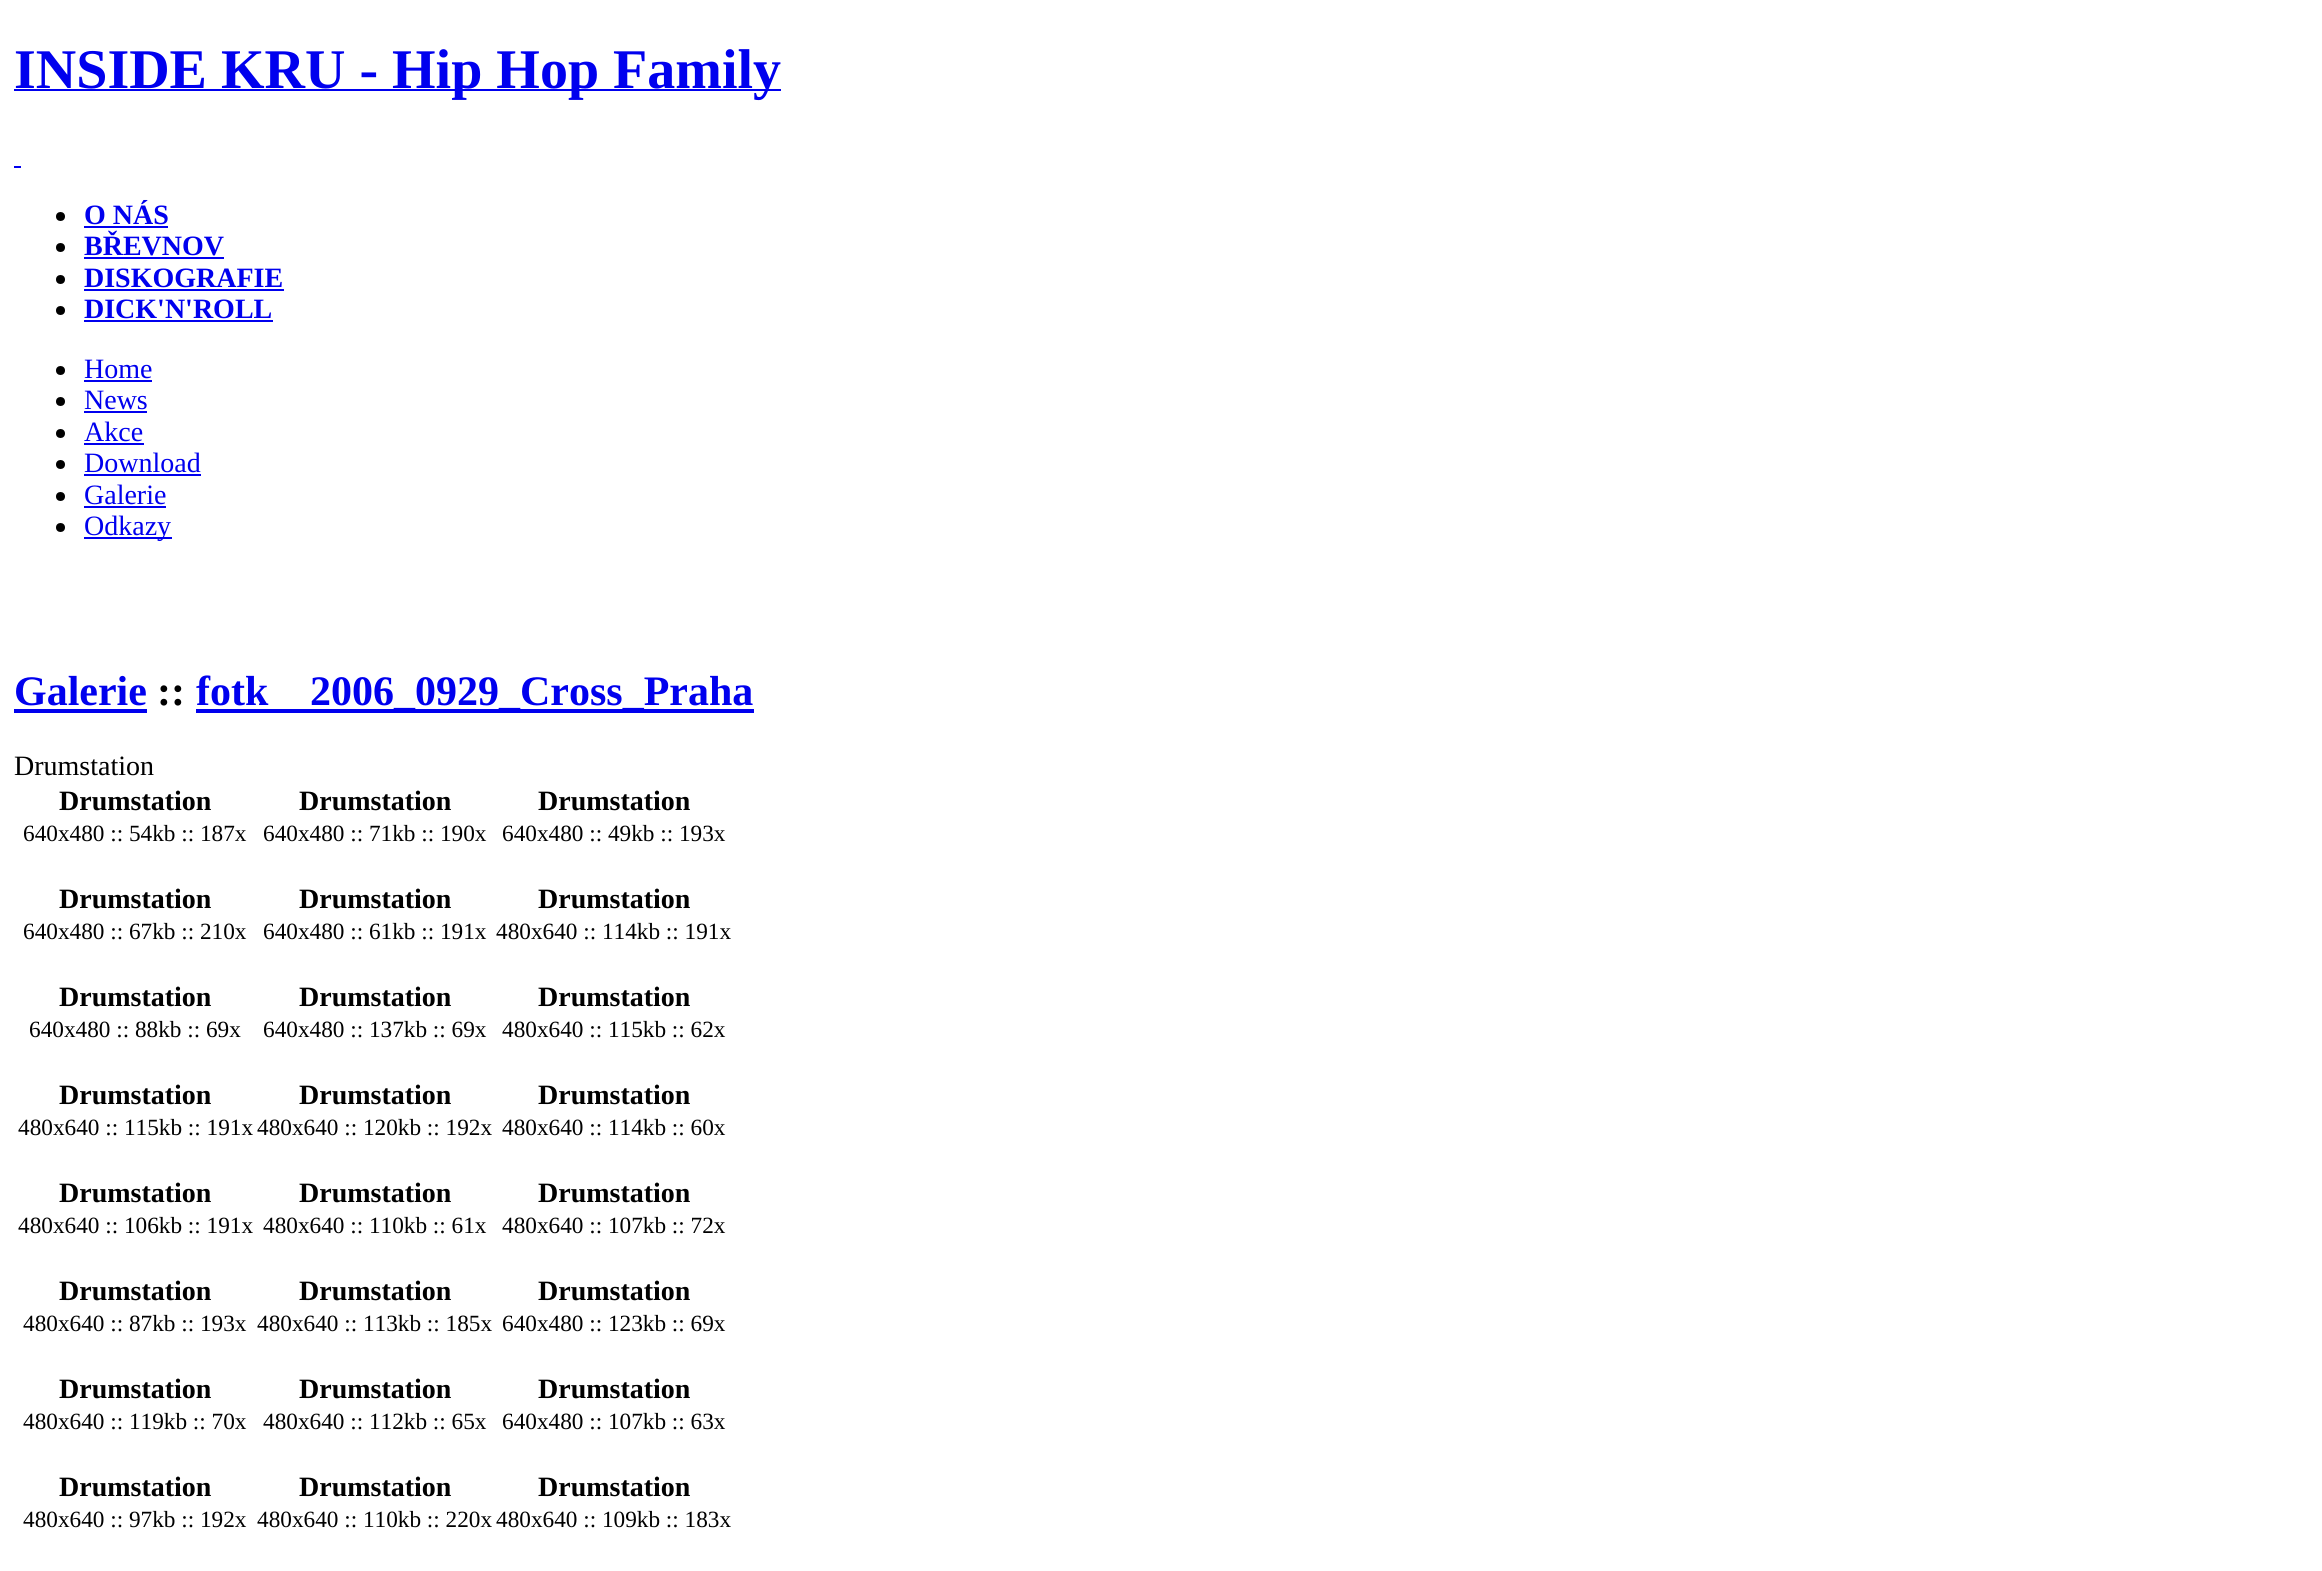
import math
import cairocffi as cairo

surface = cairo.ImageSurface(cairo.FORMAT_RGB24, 2322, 1571)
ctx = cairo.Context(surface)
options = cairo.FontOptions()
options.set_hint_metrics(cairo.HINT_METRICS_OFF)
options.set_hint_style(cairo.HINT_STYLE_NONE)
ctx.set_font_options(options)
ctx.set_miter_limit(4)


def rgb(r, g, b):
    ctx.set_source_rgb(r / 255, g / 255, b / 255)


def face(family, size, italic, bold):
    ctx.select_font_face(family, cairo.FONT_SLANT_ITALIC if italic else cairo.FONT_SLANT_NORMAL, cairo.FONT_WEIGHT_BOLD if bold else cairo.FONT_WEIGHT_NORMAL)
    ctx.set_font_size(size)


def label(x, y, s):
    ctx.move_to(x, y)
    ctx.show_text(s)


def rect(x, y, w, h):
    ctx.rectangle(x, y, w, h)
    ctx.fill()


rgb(255, 255, 255)
ctx.paint()
rgb(0, 0, 238)
rect(14, 89, 767, 2)
face('Liberation Serif', 56, 0, 1)
label(14, 88, 'INSIDE KRU - Hip Hop Family')
rect(14, 166, 7, 2)
rgb(0, 0, 0)
ctx.new_path()
ctx.arc(60.5, 216.5, 4.5, 0, 2 * math.pi)
ctx.fill()
face('Liberation Serif', 28, 0, 1)
rgb(0, 0, 238)
label(84, 224, 'O NÁS')
rect(84, 226, 84, 2)
rgb(0, 0, 0)
ctx.new_path()
ctx.arc(60.5, 247.5, 4.5, 0, 2 * math.pi)
ctx.fill()
rgb(0, 0, 238)
label(84, 255, 'BŘEVNOV')
rect(84, 257, 140, 2)
rgb(0, 0, 0)
ctx.new_path()
ctx.arc(60.5, 279.5, 4.5, 0, 2 * math.pi)
ctx.fill()
rgb(0, 0, 238)
label(84, 287, 'DISKOGRAFIE')
rect(84, 289, 200, 2)
rgb(0, 0, 0)
ctx.new_path()
ctx.arc(60.5, 310.5, 4.5, 0, 2 * math.pi)
ctx.fill()
rgb(0, 0, 238)
label(84, 318, 'DICK\'N\'ROLL')
rect(84, 320, 189, 2)
rgb(0, 0, 0)
ctx.new_path()
ctx.arc(60.5, 370.5, 4.5, 0, 2 * math.pi)
ctx.fill()
face('Liberation Serif', 28, 0, 0)
rgb(0, 0, 238)
label(84, 378, 'Home')
rect(84, 380, 68, 2)
rgb(0, 0, 0)
ctx.new_path()
ctx.arc(60.5, 401.5, 4.5, 0, 2 * math.pi)
ctx.fill()
rgb(0, 0, 238)
label(84, 409, 'News')
rect(84, 411, 63, 2)
rgb(0, 0, 0)
ctx.new_path()
ctx.arc(60.5, 433.5, 4.5, 0, 2 * math.pi)
ctx.fill()
rgb(0, 0, 238)
label(84, 441, 'Akce')
rect(84, 443, 60, 2)
rgb(0, 0, 0)
ctx.new_path()
ctx.arc(60.5, 464.5, 4.5, 0, 2 * math.pi)
ctx.fill()
rgb(0, 0, 238)
label(84, 472, 'Download')
rect(84, 474, 117, 2)
rgb(0, 0, 0)
ctx.new_path()
ctx.arc(60.5, 496.5, 4.5, 0, 2 * math.pi)
ctx.fill()
rgb(0, 0, 238)
label(84, 504, 'Galerie')
rect(84, 506, 82, 2)
rgb(0, 0, 0)
ctx.new_path()
ctx.arc(60.5, 527.5, 4.5, 0, 2 * math.pi)
ctx.fill()
rgb(0, 0, 238)
rect(84, 537, 88, 2)
label(84, 535, 'Odkazy')
face('Liberation Serif', 42, 0, 1)
label(14, 705, 'Galerie')
rect(14, 709, 133, 4)
rgb(0, 0, 0)
label(157, 705, '::')
rgb(0, 0, 238)
label(196, 705, 'fotk')
rect(196, 709, 558, 4)
label(310, 705, '2006_0929_Cross_Praha')
face('Liberation Serif', 28, 0, 0)
rgb(0, 0, 0)
label(14, 775, 'Drumstation')
face('Liberation Serif', 28, 0, 1)
label(59, 810, 'Drumstation')
face('Liberation Serif', 23.25, 0, 0)
label(23, 841, '640x480 :: 54kb :: 187x')
face('Liberation Serif', 28, 0, 1)
label(299, 810, 'Drumstation')
face('Liberation Serif', 23.25, 0, 0)
label(263, 841, '640x480 :: 71kb :: 190x')
face('Liberation Serif', 28, 0, 1)
label(538, 810, 'Drumstation')
face('Liberation Serif', 23.25, 0, 0)
label(502, 841, '640x480 :: 49kb :: 193x')
face('Liberation Serif', 28, 0, 1)
label(59, 908, 'Drumstation')
face('Liberation Serif', 23.25, 0, 0)
label(23, 939, '640x480 :: 67kb :: 210x')
face('Liberation Serif', 28, 0, 1)
label(299, 908, 'Drumstation')
face('Liberation Serif', 23.25, 0, 0)
label(263, 939, '640x480 :: 61kb :: 191x')
face('Liberation Serif', 28, 0, 1)
label(538, 908, 'Drumstation')
face('Liberation Serif', 23.25, 0, 0)
label(496, 939, '480x640 :: 114kb :: 191x')
face('Liberation Serif', 28, 0, 1)
label(59, 1006, 'Drumstation')
face('Liberation Serif', 23.25, 0, 0)
label(29, 1037, '640x480 :: 88kb :: 69x')
face('Liberation Serif', 28, 0, 1)
label(299, 1006, 'Drumstation')
face('Liberation Serif', 23.25, 0, 0)
label(263, 1037, '640x480 :: 137kb :: 69x')
face('Liberation Serif', 28, 0, 1)
label(538, 1006, 'Drumstation')
face('Liberation Serif', 23.25, 0, 0)
label(502, 1037, '480x640 :: 115kb :: 62x')
face('Liberation Serif', 28, 0, 1)
label(59, 1104, 'Drumstation')
face('Liberation Serif', 23.25, 0, 0)
label(18, 1135, '480x640 :: 115kb :: 191x')
face('Liberation Serif', 28, 0, 1)
label(299, 1104, 'Drumstation')
face('Liberation Serif', 23.25, 0, 0)
label(257, 1135, '480x640 :: 120kb :: 192x')
face('Liberation Serif', 28, 0, 1)
label(538, 1104, 'Drumstation')
face('Liberation Serif', 23.25, 0, 0)
label(502, 1135, '480x640 :: 114kb :: 60x')
face('Liberation Serif', 28, 0, 1)
label(59, 1202, 'Drumstation')
face('Liberation Serif', 23.25, 0, 0)
label(18, 1233, '480x640 :: 106kb :: 191x')
face('Liberation Serif', 28, 0, 1)
label(299, 1202, 'Drumstation')
face('Liberation Serif', 23.25, 0, 0)
label(263, 1233, '480x640 :: 110kb :: 61x')
face('Liberation Serif', 28, 0, 1)
label(538, 1202, 'Drumstation')
face('Liberation Serif', 23.25, 0, 0)
label(502, 1233, '480x640 :: 107kb :: 72x')
face('Liberation Serif', 28, 0, 1)
label(59, 1300, 'Drumstation')
face('Liberation Serif', 23.25, 0, 0)
label(23, 1331, '480x640 :: 87kb :: 193x')
face('Liberation Serif', 28, 0, 1)
label(299, 1300, 'Drumstation')
face('Liberation Serif', 23.25, 0, 0)
label(257, 1331, '480x640 :: 113kb :: 185x')
face('Liberation Serif', 28, 0, 1)
label(538, 1300, 'Drumstation')
face('Liberation Serif', 23.25, 0, 0)
label(502, 1331, '640x480 :: 123kb :: 69x')
face('Liberation Serif', 28, 0, 1)
label(59, 1398, 'Drumstation')
face('Liberation Serif', 23.25, 0, 0)
label(23, 1429, '480x640 :: 119kb :: 70x')
face('Liberation Serif', 28, 0, 1)
label(299, 1398, 'Drumstation')
face('Liberation Serif', 23.25, 0, 0)
label(263, 1429, '480x640 :: 112kb :: 65x')
face('Liberation Serif', 28, 0, 1)
label(538, 1398, 'Drumstation')
face('Liberation Serif', 23.25, 0, 0)
label(502, 1429, '640x480 :: 107kb :: 63x')
face('Liberation Serif', 28, 0, 1)
label(59, 1496, 'Drumstation')
face('Liberation Serif', 23.25, 0, 0)
label(23, 1527, '480x640 :: 97kb :: 192x')
face('Liberation Serif', 28, 0, 1)
label(299, 1496, 'Drumstation')
face('Liberation Serif', 23.25, 0, 0)
label(257, 1527, '480x640 :: 110kb :: 220x')
face('Liberation Serif', 28, 0, 1)
label(538, 1496, 'Drumstation')
face('Liberation Serif', 23.25, 0, 0)
label(496, 1527, '480x640 :: 109kb :: 183x')
surface.write_to_png('render.png')
